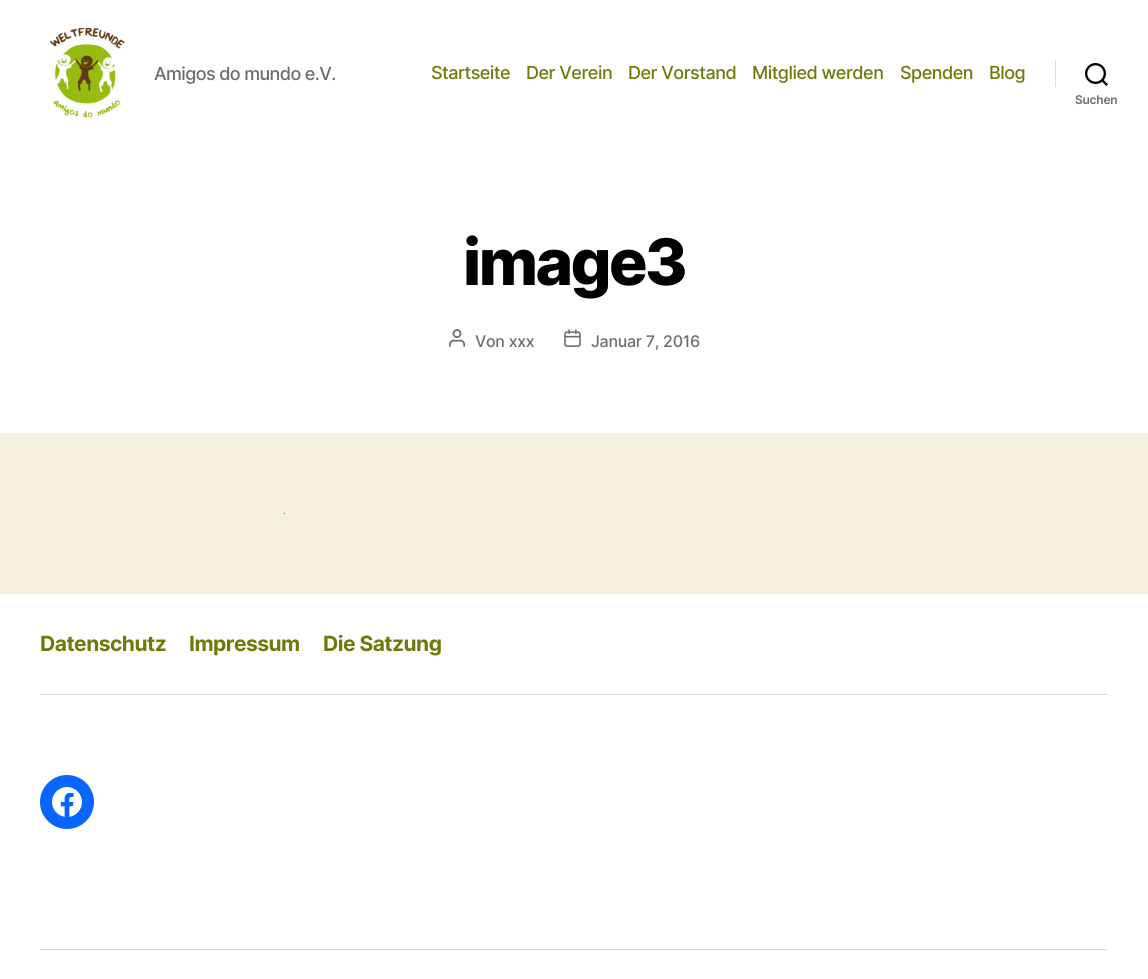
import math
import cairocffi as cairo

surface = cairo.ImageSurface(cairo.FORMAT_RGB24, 1148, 979)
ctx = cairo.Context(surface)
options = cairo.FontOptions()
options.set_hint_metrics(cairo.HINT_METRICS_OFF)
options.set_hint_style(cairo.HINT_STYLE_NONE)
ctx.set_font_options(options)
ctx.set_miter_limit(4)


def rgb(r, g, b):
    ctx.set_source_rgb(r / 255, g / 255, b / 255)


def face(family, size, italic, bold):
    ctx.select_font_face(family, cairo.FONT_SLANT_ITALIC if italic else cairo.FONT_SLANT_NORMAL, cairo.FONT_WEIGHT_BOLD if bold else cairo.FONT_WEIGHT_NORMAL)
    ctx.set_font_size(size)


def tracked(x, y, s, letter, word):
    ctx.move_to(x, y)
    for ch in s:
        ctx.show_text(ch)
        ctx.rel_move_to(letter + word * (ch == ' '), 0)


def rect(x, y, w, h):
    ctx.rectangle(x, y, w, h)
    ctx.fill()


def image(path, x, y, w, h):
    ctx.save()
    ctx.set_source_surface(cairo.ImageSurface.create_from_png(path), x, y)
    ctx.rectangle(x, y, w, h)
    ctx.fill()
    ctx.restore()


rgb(245, 239, 224)
ctx.paint()
rgb(255, 255, 255)
rect(0, 0, 1148, 433)
image('image0.png', 49, 28, 76, 90)
face('Inter Medium', 18, 0, 0)
rgb(109, 109, 109)
tracked(154, 80, 'Amigos do mundo e.V.', -0.6, 0)
rgb(111, 122, 9)
tracked(431, 79, 'Startseite', -0.5, 0)
tracked(526, 79, 'Der Verein', -0.5, 0)
tracked(628, 79, 'Der Vorstand', -0.5, 0)
tracked(752, 79, 'Mitglied werden', -0.5, 0)
tracked(900, 79, 'Spenden', -0.5, 0)
tracked(989, 79, 'Blog', -0.5, 0)
rgb(219, 219, 219)
rect(1055, 60, 1, 27)
image('image1.png', 1085, 63, 23, 23)
face('Inter SemiBold', 12, 0, 0)
rgb(109, 109, 109)
tracked(1075, 104, 'Suchen', -0.25, 0)
face('Inter ExtraBold', 64, 0, 0)
rgb(0, 0, 0)
tracked(463, 285, 'image3', -2.5, 0)
image('image2.png', 449, 329, 16, 18)
face('Inter Medium', 16, 0, 0)
rgb(109, 109, 109)
tracked(475, 347, 'Von xxx', -0.25, 0)
image('image3.png', 564, 329, 17, 18)
tracked(591, 347, 'Januar 7, 2016', -0.25, 0)
rgb(114, 103, 88)
rect(284, 513, 1, 1)
rgb(255, 255, 255)
rect(0, 594, 1148, 385)
rgb(219, 219, 219)
rect(40, 694, 1068, 1)
face('Inter', 21, 0, 1)
rgb(111, 122, 9)
tracked(40, 651, 'Datenschutz', -0.5, 0)
tracked(189, 651, 'Impressum', -0.5, 0)
tracked(323, 651, 'Die Satzung', -0.5, 0)
rgb(219, 219, 219)
rect(40, 949, 1068, 1)
rgb(8, 102, 255)
ctx.new_path()
ctx.arc(67, 802, 27, 0, 2 * math.pi)
ctx.fill()
image('image4.png', 52, 787, 30, 30)
surface.write_to_png('render.png')
